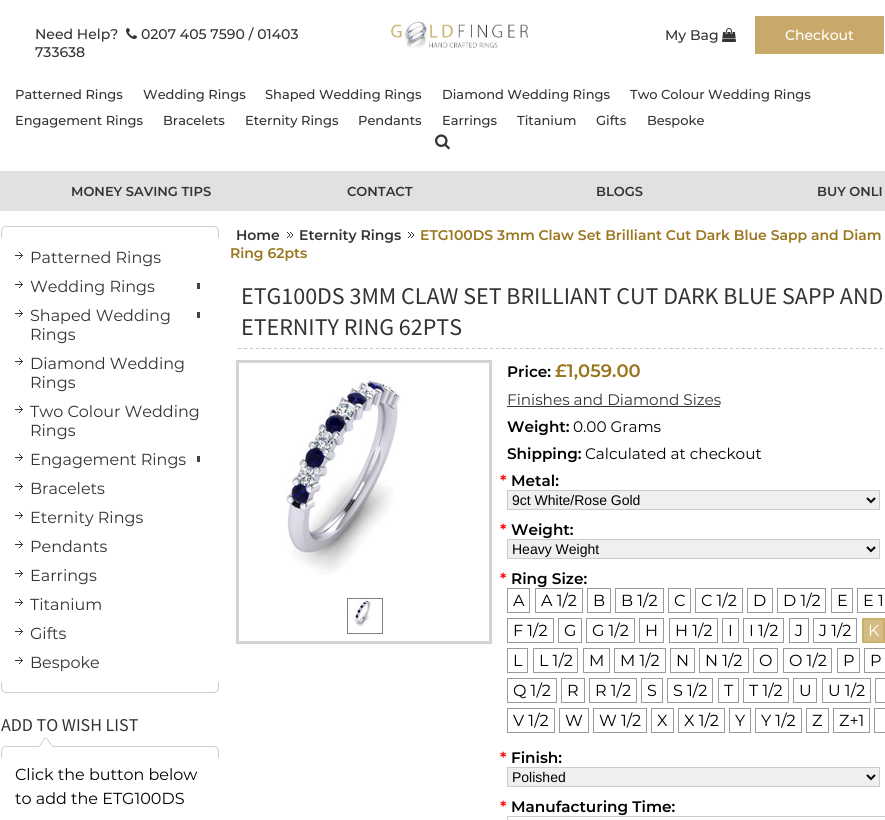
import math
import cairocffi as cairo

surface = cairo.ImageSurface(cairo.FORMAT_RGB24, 885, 820)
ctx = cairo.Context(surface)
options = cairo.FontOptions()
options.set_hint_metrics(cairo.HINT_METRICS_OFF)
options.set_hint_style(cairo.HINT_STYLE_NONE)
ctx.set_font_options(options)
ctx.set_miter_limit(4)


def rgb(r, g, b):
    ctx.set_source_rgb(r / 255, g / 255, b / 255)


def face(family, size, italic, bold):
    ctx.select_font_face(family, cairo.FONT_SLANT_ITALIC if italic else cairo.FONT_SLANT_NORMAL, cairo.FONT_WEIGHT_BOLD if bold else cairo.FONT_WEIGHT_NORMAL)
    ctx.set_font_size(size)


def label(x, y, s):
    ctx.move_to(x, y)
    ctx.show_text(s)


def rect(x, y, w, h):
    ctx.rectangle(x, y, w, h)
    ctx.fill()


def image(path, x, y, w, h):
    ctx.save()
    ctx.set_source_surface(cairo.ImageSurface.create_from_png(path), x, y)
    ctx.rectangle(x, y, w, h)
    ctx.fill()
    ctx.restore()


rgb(255, 255, 255)
ctx.paint()
face('Montserrat Medium', 14, 0, 0)
rgb(51, 51, 51)
label(35, 39, 'Need Help?')
image('image0.png', 126, 28, 11, 11)
label(141, 39, '0207 405 7590 / 01403')
label(35, 57, '733638')
image('image1.png', 391, 21, 137, 27)
label(665, 40, 'My Bag')
image('image2.png', 722, 28, 14, 14)
rgb(201, 169, 106)
rect(755, 16, 129, 38)
rgb(255, 255, 255)
label(785, 40, 'Checkout')
face('Montserrat Medium', 13, 0, 0)
rgb(51, 51, 51)
label(15, 99, 'Patterned Rings')
label(143, 99, 'Wedding Rings')
label(265, 99, 'Shaped Wedding Rings')
label(442, 99, 'Diamond Wedding Rings')
label(630, 99, 'Two Colour Wedding Rings')
label(15, 125, 'Engagement Rings')
label(163, 125, 'Bracelets')
label(245, 125, 'Eternity Rings')
label(358, 125, 'Pendants')
label(442, 125, 'Earrings')
label(517, 125, 'Titanium')
label(596, 125, 'Gifts')
label(647, 125, 'Bespoke')
image('image3.png', 435, 134, 15, 16)
rgb(225, 225, 225)
rect(0, 171, 885, 40)
face('Montserrat SemiBold', 13, 0, 0)
rgb(51, 51, 51)
label(71, 196, 'MONEY SAVING TIPS')
label(347, 196, 'CONTACT')
label(596, 196, 'BLOGS')
label(817, 196, 'BUY ONLI')
image('image4.png', 1, 682, 218, 11)
image('image5.png', 1, 226, 218, 12)
image('image6.png', 15, 252, 8, 7)
face('Montserrat', 16, 0, 0)
label(30, 263, 'Patterned Rings')
image('image6.png', 15, 281, 8, 7)
label(30, 292, 'Wedding Rings')
rgb(68, 68, 68)
rect(197, 283, 3, 6)
image('image6.png', 15, 310, 8, 7)
rgb(51, 51, 51)
label(30, 321, 'Shaped Wedding')
rgb(68, 68, 68)
rect(197, 312, 3, 6)
rgb(51, 51, 51)
label(30, 340, 'Rings')
image('image6.png', 15, 358, 8, 7)
label(30, 369, 'Diamond Wedding')
label(30, 388, 'Rings')
image('image6.png', 15, 406, 8, 7)
label(30, 417, 'Two Colour Wedding')
label(30, 436, 'Rings')
image('image6.png', 15, 454, 8, 7)
label(30, 465, 'Engagement Rings')
rgb(68, 68, 68)
rect(197, 456, 3, 6)
image('image6.png', 15, 483, 8, 7)
rgb(51, 51, 51)
label(30, 494, 'Bracelets')
image('image6.png', 15, 512, 8, 7)
label(30, 523, 'Eternity Rings')
image('image6.png', 15, 541, 8, 7)
label(30, 552, 'Pendants')
image('image6.png', 15, 570, 8, 7)
label(30, 581, 'Earrings')
image('image6.png', 15, 599, 8, 7)
label(30, 610, 'Titanium')
image('image6.png', 15, 628, 8, 7)
label(30, 639, 'Gifts')
image('image6.png', 15, 657, 8, 7)
label(30, 668, 'Bespoke')
image('image7.png', 1, 737, 218, 21)
face('Source Sans Pro', 18, 0, 0)
label(1, 731, 'ADD TO WISH LIST')
face('Montserrat', 16, 0, 0)
rgb(0, 0, 0)
label(15, 780, 'Click the button below')
label(15, 804, 'to add the ETG100DS')
face('Montserrat SemiBold', 14, 0, 0)
rgb(51, 51, 51)
label(236, 240, 'Home')
image('image8.png', 287, 232, 6, 6)
label(299, 240, 'Eternity Rings')
image('image8.png', 408, 232, 6, 6)
rgb(153, 117, 29)
label(420, 240, 'ETG100DS 3mm Claw Set Brilliant Cut Dark Blue Sapp and Diam')
label(230, 258, 'Ring 62pts')
image('image9.png', 237, 348, 647, 1)
face('Source Sans Pro', 24, 0, 0)
rgb(51, 51, 51)
label(241, 304, 'ETG100DS 3MM CLAW SET BRILLIANT CUT DARK BLUE SAPP AND')
label(241, 335, 'ETERNITY RING 62PTS')
ctx.rectangle(237.5, 361.5, 253, 281)
rgb(212, 212, 212)
ctx.set_line_width(3)
ctx.stroke()
image('image10.png', 286, 376, 117, 199)
ctx.rectangle(347.5, 598.5, 35, 35)
rgb(128, 128, 128)
ctx.set_line_width(1)
ctx.stroke()
image('image11.png', 351, 599, 24, 28)
face('Montserrat SemiBold', 15.25, 0, 0)
rgb(0, 0, 0)
label(507, 377, 'Price:')
face('Montserrat SemiBold', 18, 0, 0)
rgb(153, 117, 29)
label(555, 377, '£1,059.00')
face('Montserrat', 15.25, 0, 0)
rgb(51, 51, 51)
label(507, 405, 'Finishes and Diamond Sizes')
rect(507, 406, 213, 1)
face('Montserrat SemiBold', 15.25, 0, 0)
rgb(0, 0, 0)
label(507, 432, 'Weight:')
face('Montserrat', 15.25, 0, 0)
label(573, 432, '0.00 Grams')
face('Montserrat SemiBold', 15.25, 0, 0)
label(507, 459, 'Shipping:')
face('Montserrat', 15.25, 0, 0)
label(585, 459, 'Calculated at checkout')
face('Montserrat SemiBold', 15.25, 0, 0)
rgb(255, 0, 0)
label(500, 486, '*')
rgb(0, 0, 0)
label(511, 486, 'Metal:')
rgb(239, 239, 239)
ctx.rectangle(507.5, 490.5, 372, 19)
ctx.fill_preserve()
rgb(204, 204, 204)
ctx.stroke()
ctx.new_path()
ctx.move_to(867, 498)
ctx.line_to(871, 502)
ctx.line_to(875, 498)
rgb(0, 0, 0)
ctx.set_line_width(2)
ctx.stroke()
face('Liberation Sans', 14, 0, 0)
label(512, 505, '9ct White/Rose Gold')
face('Montserrat SemiBold', 15.25, 0, 0)
rgb(255, 0, 0)
label(500, 535, '*')
rgb(0, 0, 0)
label(511, 535, 'Weight:')
rgb(239, 239, 239)
ctx.rectangle(507.5, 539.5, 372, 19)
ctx.fill_preserve()
rgb(204, 204, 204)
ctx.set_line_width(1)
ctx.stroke()
ctx.new_path()
ctx.move_to(867, 547)
ctx.line_to(871, 551)
ctx.line_to(875, 547)
rgb(0, 0, 0)
ctx.set_line_width(2)
ctx.stroke()
face('Liberation Sans', 14, 0, 0)
label(512, 554, 'Heavy Weight')
face('Montserrat SemiBold', 15.25, 0, 0)
rgb(255, 0, 0)
label(500, 584, '*')
rgb(0, 0, 0)
label(511, 584, 'Ring Size:')
ctx.rectangle(507.5, 588.5, 22, 24)
rgb(153, 153, 153)
ctx.set_line_width(1)
ctx.stroke()
face('Montserrat', 16, 0, 0)
rgb(0, 0, 0)
label(513, 606, 'A')
ctx.rectangle(535.5, 588.5, 47, 24)
rgb(153, 153, 153)
ctx.stroke()
rgb(0, 0, 0)
label(541, 606, 'A 1/2')
ctx.rectangle(587.5, 588.5, 23, 24)
rgb(153, 153, 153)
ctx.stroke()
rgb(0, 0, 0)
label(593, 606, 'B')
ctx.rectangle(615.5, 588.5, 48, 24)
rgb(153, 153, 153)
ctx.stroke()
rgb(0, 0, 0)
label(621, 606, 'B 1/2')
ctx.rectangle(668.5, 588.5, 22, 24)
rgb(153, 153, 153)
ctx.stroke()
rgb(0, 0, 0)
label(674, 606, 'C')
ctx.rectangle(695.5, 588.5, 47, 24)
rgb(153, 153, 153)
ctx.stroke()
rgb(0, 0, 0)
label(701, 606, 'C 1/2')
ctx.rectangle(747.5, 588.5, 25, 24)
rgb(153, 153, 153)
ctx.stroke()
rgb(0, 0, 0)
label(753, 606, 'D')
ctx.rectangle(777.5, 588.5, 48, 24)
rgb(153, 153, 153)
ctx.stroke()
rgb(0, 0, 0)
label(783, 606, 'D 1/2')
ctx.rectangle(831.5, 588.5, 21, 24)
rgb(153, 153, 153)
ctx.stroke()
rgb(0, 0, 0)
label(837, 606, 'E')
ctx.rectangle(857.5, 588.5, 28, 24)
rgb(153, 153, 153)
ctx.stroke()
rgb(0, 0, 0)
label(863, 606, 'E 1')
ctx.rectangle(507.5, 618.5, 46, 24)
rgb(153, 153, 153)
ctx.stroke()
rgb(0, 0, 0)
label(513, 636, 'F 1/2')
ctx.rectangle(558.5, 618.5, 23, 24)
rgb(153, 153, 153)
ctx.stroke()
rgb(0, 0, 0)
label(564, 636, 'G')
ctx.rectangle(586.5, 618.5, 48, 24)
rgb(153, 153, 153)
ctx.stroke()
rgb(0, 0, 0)
label(592, 636, 'G 1/2')
ctx.rectangle(639.5, 618.5, 24, 24)
rgb(153, 153, 153)
ctx.stroke()
rgb(0, 0, 0)
label(645, 636, 'H')
ctx.rectangle(669.5, 618.5, 48, 24)
rgb(153, 153, 153)
ctx.stroke()
rgb(0, 0, 0)
label(675, 636, 'H 1/2')
ctx.rectangle(722.5, 618.5, 16, 24)
rgb(153, 153, 153)
ctx.stroke()
rgb(0, 0, 0)
label(728, 636, 'I')
ctx.rectangle(743.5, 618.5, 40, 24)
rgb(153, 153, 153)
ctx.stroke()
rgb(0, 0, 0)
label(749, 636, 'I 1/2')
ctx.rectangle(789.5, 618.5, 19, 24)
rgb(153, 153, 153)
ctx.stroke()
rgb(0, 0, 0)
label(795, 636, 'J')
ctx.rectangle(813.5, 618.5, 43, 24)
rgb(153, 153, 153)
ctx.stroke()
rgb(0, 0, 0)
label(819, 636, 'J 1/2')
rgb(212, 188, 131)
ctx.rectangle(863, 619, 21, 23)
ctx.fill_preserve()
rgb(203, 175, 108)
ctx.set_line_width(2)
ctx.stroke()
rgb(255, 255, 255)
label(868, 636, 'K')
ctx.rectangle(507.5, 648.5, 20, 24)
rgb(153, 153, 153)
ctx.set_line_width(1)
ctx.stroke()
rgb(0, 0, 0)
label(513, 666, 'L')
ctx.rectangle(533.5, 648.5, 44, 24)
rgb(153, 153, 153)
ctx.stroke()
rgb(0, 0, 0)
label(539, 666, 'L 1/2')
ctx.rectangle(583.5, 648.5, 26, 24)
rgb(153, 153, 153)
ctx.stroke()
rgb(0, 0, 0)
label(589, 666, 'M')
ctx.rectangle(614.5, 648.5, 51, 24)
rgb(153, 153, 153)
ctx.stroke()
rgb(0, 0, 0)
label(620, 666, 'M 1/2')
ctx.rectangle(670.5, 648.5, 24, 24)
rgb(153, 153, 153)
ctx.stroke()
rgb(0, 0, 0)
label(676, 666, 'N')
ctx.rectangle(699.5, 648.5, 49, 24)
rgb(153, 153, 153)
ctx.stroke()
rgb(0, 0, 0)
label(705, 666, 'N 1/2')
ctx.rectangle(753.5, 648.5, 24, 24)
rgb(153, 153, 153)
ctx.stroke()
rgb(0, 0, 0)
label(759, 666, 'O')
ctx.rectangle(783.5, 648.5, 48, 24)
rgb(153, 153, 153)
ctx.stroke()
rgb(0, 0, 0)
label(789, 666, 'O 1/2')
ctx.rectangle(837.5, 648.5, 22, 24)
rgb(153, 153, 153)
ctx.stroke()
rgb(0, 0, 0)
label(843, 666, 'P')
ctx.rectangle(864.5, 648.5, 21, 24)
rgb(153, 153, 153)
ctx.stroke()
rgb(0, 0, 0)
label(870, 666, 'P')
ctx.rectangle(507.5, 678.5, 49, 24)
rgb(153, 153, 153)
ctx.stroke()
rgb(0, 0, 0)
label(513, 696, 'Q 1/2')
ctx.rectangle(561.5, 678.5, 23, 24)
rgb(153, 153, 153)
ctx.stroke()
rgb(0, 0, 0)
label(567, 696, 'R')
ctx.rectangle(589.5, 678.5, 47, 24)
rgb(153, 153, 153)
ctx.stroke()
rgb(0, 0, 0)
label(595, 696, 'R 1/2')
ctx.rectangle(641.5, 678.5, 21, 24)
rgb(153, 153, 153)
ctx.stroke()
rgb(0, 0, 0)
label(647, 696, 'S')
ctx.rectangle(667.5, 678.5, 45, 24)
rgb(153, 153, 153)
ctx.stroke()
rgb(0, 0, 0)
label(673, 696, 'S 1/2')
ctx.rectangle(718.5, 678.5, 20, 24)
rgb(153, 153, 153)
ctx.stroke()
rgb(0, 0, 0)
label(724, 696, 'T')
ctx.rectangle(743.5, 678.5, 45, 24)
rgb(153, 153, 153)
ctx.stroke()
rgb(0, 0, 0)
label(749, 696, 'T 1/2')
ctx.rectangle(793.5, 678.5, 23, 24)
rgb(153, 153, 153)
ctx.stroke()
rgb(0, 0, 0)
label(799, 696, 'U')
ctx.rectangle(822.5, 678.5, 48, 24)
rgb(153, 153, 153)
ctx.stroke()
rgb(0, 0, 0)
label(828, 696, 'U 1/2')
ctx.rectangle(875.5, 678.5, 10, 24)
rgb(153, 153, 153)
ctx.stroke()
ctx.rectangle(507.5, 708.5, 47, 24)
ctx.stroke()
rgb(0, 0, 0)
label(513, 726, 'V 1/2')
ctx.rectangle(559.5, 708.5, 29, 24)
rgb(153, 153, 153)
ctx.stroke()
rgb(0, 0, 0)
label(565, 726, 'W')
ctx.rectangle(593.5, 708.5, 53, 24)
rgb(153, 153, 153)
ctx.stroke()
rgb(0, 0, 0)
label(599, 726, 'W 1/2')
ctx.rectangle(651.5, 708.5, 22, 24)
rgb(153, 153, 153)
ctx.stroke()
rgb(0, 0, 0)
label(657, 726, 'X')
ctx.rectangle(678.5, 708.5, 46, 24)
rgb(153, 153, 153)
ctx.stroke()
rgb(0, 0, 0)
label(684, 726, 'X 1/2')
ctx.rectangle(729.5, 708.5, 21, 24)
rgb(153, 153, 153)
ctx.stroke()
rgb(0, 0, 0)
label(735, 726, 'Y')
ctx.rectangle(755.5, 708.5, 46, 24)
rgb(153, 153, 153)
ctx.stroke()
rgb(0, 0, 0)
label(761, 726, 'Y 1/2')
ctx.rectangle(806.5, 708.5, 22, 24)
rgb(153, 153, 153)
ctx.stroke()
rgb(0, 0, 0)
label(812, 726, 'Z')
ctx.rectangle(833.5, 708.5, 36, 24)
rgb(153, 153, 153)
ctx.stroke()
rgb(0, 0, 0)
label(839, 726, 'Z+1')
ctx.rectangle(874.5, 708.5, 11, 24)
rgb(153, 153, 153)
ctx.stroke()
face('Montserrat SemiBold', 15.25, 0, 0)
rgb(255, 0, 0)
label(500, 763, '*')
rgb(0, 0, 0)
label(511, 763, 'Finish:')
rgb(239, 239, 239)
ctx.rectangle(507.5, 767.5, 372, 19)
ctx.fill_preserve()
rgb(204, 204, 204)
ctx.stroke()
ctx.new_path()
ctx.move_to(867, 775)
ctx.line_to(871, 779)
ctx.line_to(875, 775)
rgb(0, 0, 0)
ctx.set_line_width(2)
ctx.stroke()
face('Liberation Sans', 14, 0, 0)
label(512, 782, 'Polished')
face('Montserrat SemiBold', 15.25, 0, 0)
rgb(255, 0, 0)
label(500, 812, '*')
rgb(0, 0, 0)
label(511, 812, 'Manufacturing Time:')
ctx.rectangle(507.5, 816.5, 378, 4)
rgb(204, 204, 204)
ctx.set_line_width(1)
ctx.stroke()
surface.write_to_png('render.png')
